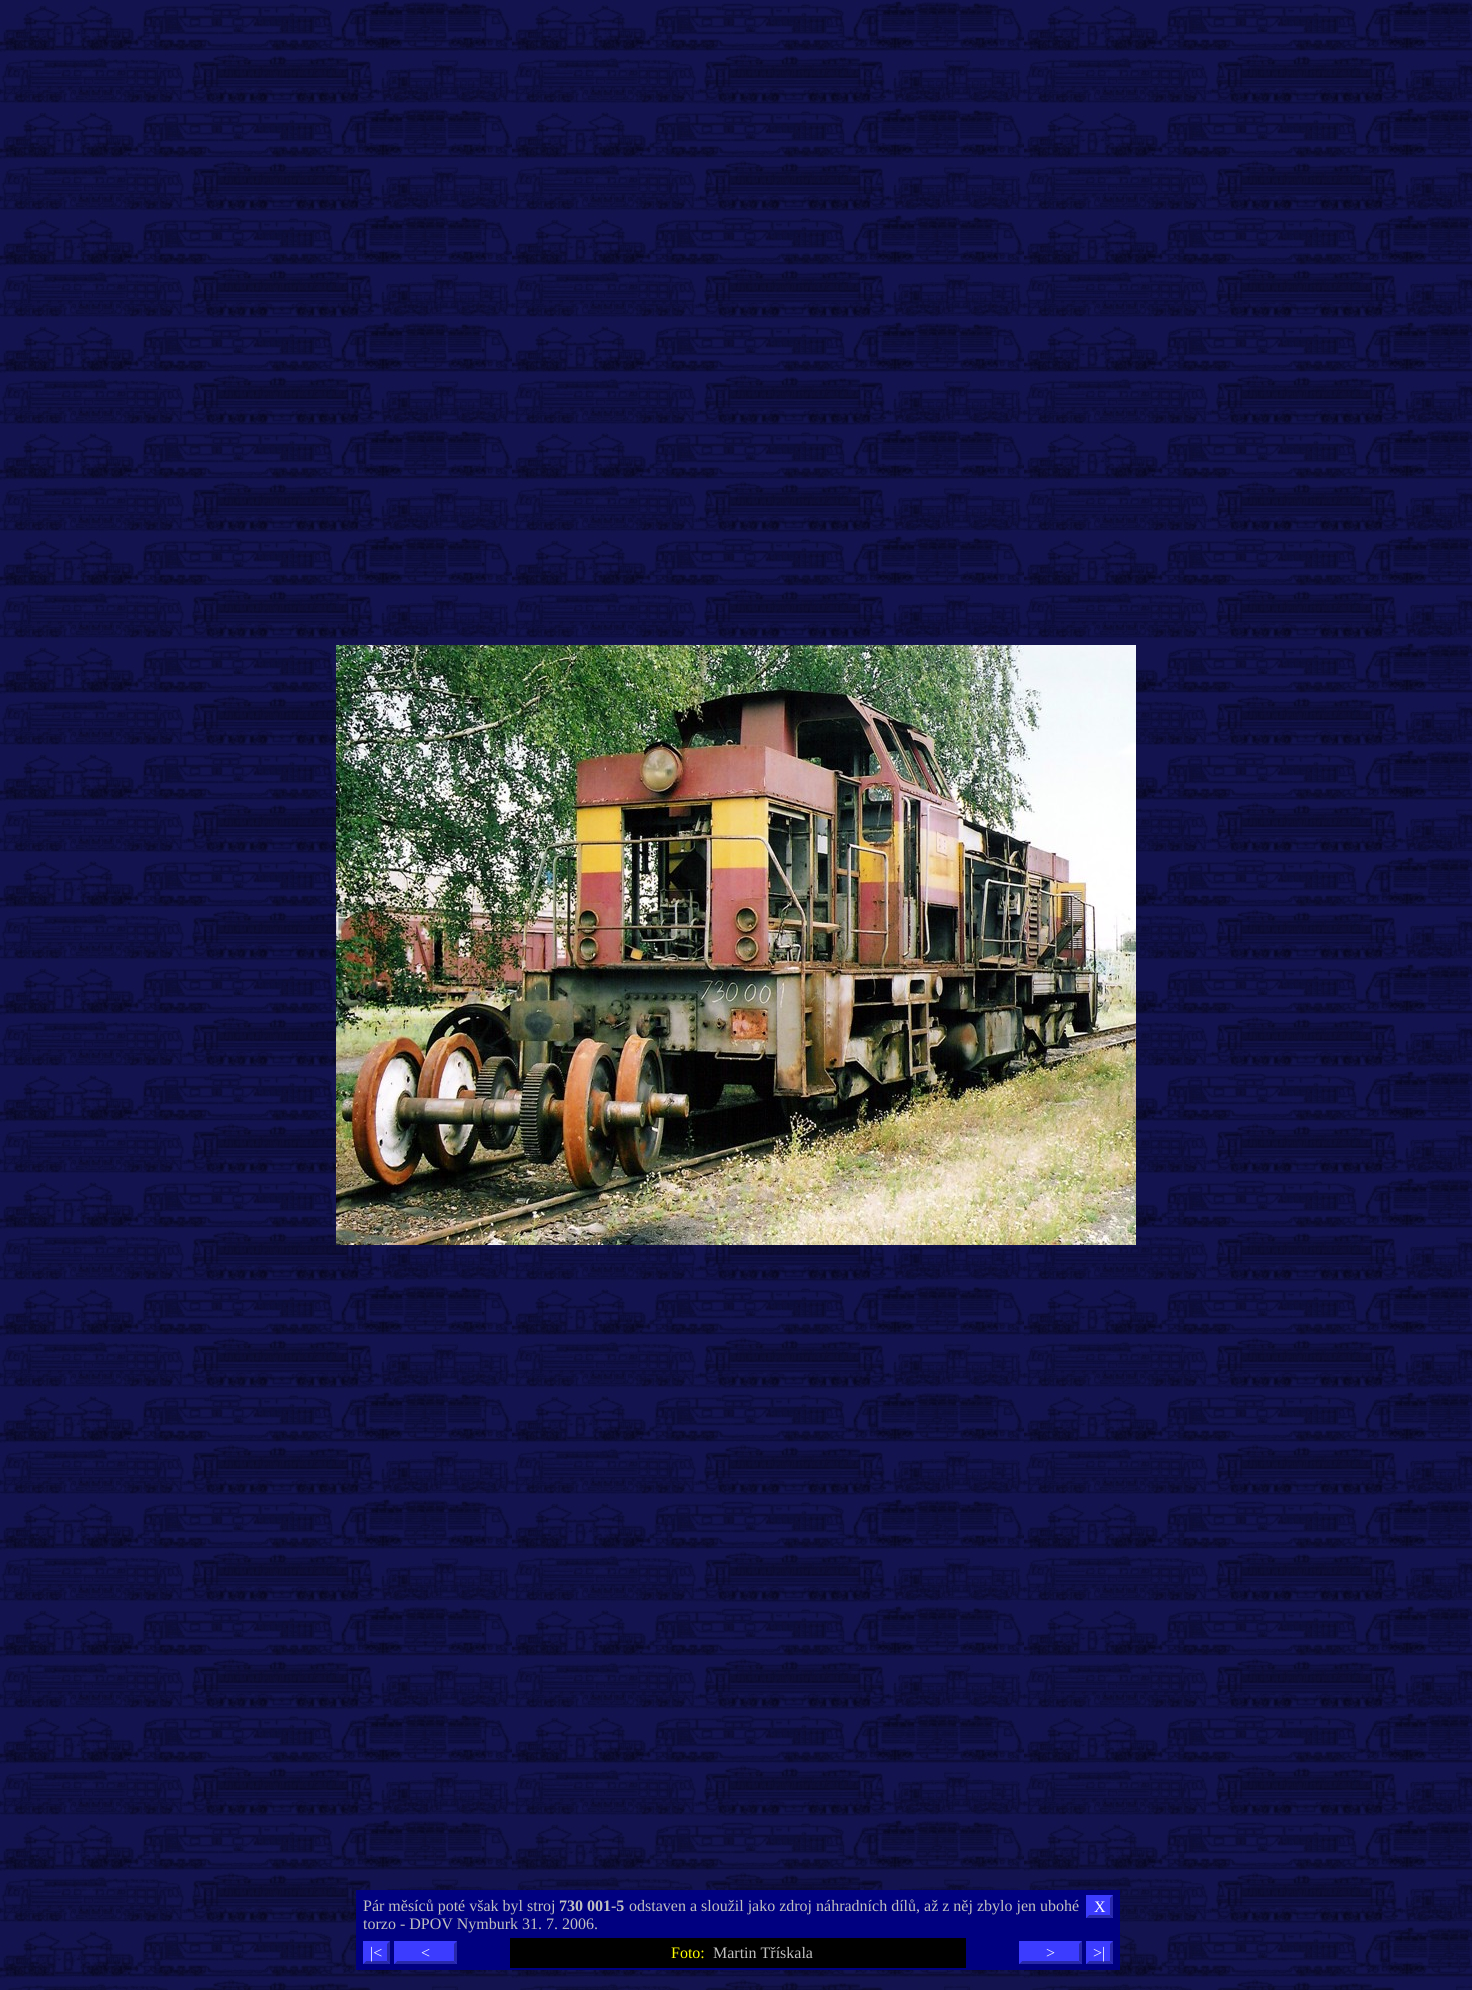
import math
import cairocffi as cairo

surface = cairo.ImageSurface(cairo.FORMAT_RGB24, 1472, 1990)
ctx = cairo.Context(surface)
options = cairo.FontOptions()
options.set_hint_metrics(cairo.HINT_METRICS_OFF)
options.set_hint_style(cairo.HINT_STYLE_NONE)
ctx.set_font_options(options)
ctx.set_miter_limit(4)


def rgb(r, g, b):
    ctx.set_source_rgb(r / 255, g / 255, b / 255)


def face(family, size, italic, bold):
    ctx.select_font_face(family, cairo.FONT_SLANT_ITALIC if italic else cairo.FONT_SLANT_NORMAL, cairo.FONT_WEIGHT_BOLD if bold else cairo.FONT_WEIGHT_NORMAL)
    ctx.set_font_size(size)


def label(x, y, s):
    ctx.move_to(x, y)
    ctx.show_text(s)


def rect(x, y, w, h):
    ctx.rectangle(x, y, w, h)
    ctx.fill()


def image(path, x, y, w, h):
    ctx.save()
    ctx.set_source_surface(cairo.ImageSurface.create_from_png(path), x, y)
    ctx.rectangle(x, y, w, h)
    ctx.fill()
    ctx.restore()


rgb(255, 255, 255)
ctx.paint()
image('image0.png', 0, 0, 1472, 1990)
image('image1.png', 336, 645, 800, 600)
rgb(0, 0, 128)
rect(356, 1890, 764, 80)
face('Liberation Serif', 16, 0, 0)
rgb(192, 192, 192)
label(363, 1911, 'Pár měsíců poté však byl stroj')
face('Liberation Serif', 16, 0, 1)
label(559, 1911, '730 001-5')
face('Liberation Serif', 16, 0, 0)
label(629, 1911, 'odstaven a sloužil jako zdroj náhradních dílů, až z něj zbylo jen ubohé')
label(363, 1929, 'torzo - DPOV Nymburk 31. 7. 2006.')
rgb(60, 60, 255)
rect(1086, 1895, 27, 23)
rgb(255, 255, 255)
label(1094, 1912, 'X')
rgb(40, 40, 170)
ctx.new_path()
ctx.move_to(1113, 1895)
ctx.line_to(1113, 1918)
ctx.line_to(1110, 1915)
ctx.line_to(1110, 1898)
ctx.close_path()
ctx.fill()
ctx.new_path()
ctx.move_to(1113, 1918)
ctx.line_to(1086, 1918)
ctx.line_to(1089, 1915)
ctx.line_to(1110, 1915)
ctx.close_path()
ctx.fill()
rgb(60, 60, 255)
ctx.new_path()
ctx.move_to(1086, 1918)
ctx.line_to(1086, 1895)
ctx.line_to(1089, 1898)
ctx.line_to(1089, 1915)
ctx.close_path()
ctx.fill()
rect(363, 1941, 27, 23)
rgb(40, 40, 170)
ctx.new_path()
ctx.move_to(390, 1941)
ctx.line_to(390, 1964)
ctx.line_to(387, 1961)
ctx.line_to(387, 1944)
ctx.close_path()
ctx.fill()
ctx.new_path()
ctx.move_to(390, 1964)
ctx.line_to(363, 1964)
ctx.line_to(366, 1961)
ctx.line_to(387, 1961)
ctx.close_path()
ctx.fill()
rgb(255, 255, 255)
label(370, 1958, '|<')
rgb(60, 60, 255)
ctx.new_path()
ctx.move_to(363, 1964)
ctx.line_to(363, 1941)
ctx.line_to(366, 1944)
ctx.line_to(366, 1961)
ctx.close_path()
ctx.fill()
rect(394, 1941, 63, 23)
rgb(255, 255, 255)
label(421, 1958, '<')
rgb(40, 40, 170)
ctx.new_path()
ctx.move_to(457, 1941)
ctx.line_to(457, 1964)
ctx.line_to(454, 1961)
ctx.line_to(454, 1944)
ctx.close_path()
ctx.fill()
ctx.new_path()
ctx.move_to(457, 1964)
ctx.line_to(394, 1964)
ctx.line_to(397, 1961)
ctx.line_to(454, 1961)
ctx.close_path()
ctx.fill()
rgb(60, 60, 255)
ctx.new_path()
ctx.move_to(394, 1964)
ctx.line_to(394, 1941)
ctx.line_to(397, 1944)
ctx.line_to(397, 1961)
ctx.close_path()
ctx.fill()
rgb(0, 0, 0)
rect(510, 1938, 456, 30)
rgb(255, 255, 0)
label(671, 1958, 'Foto:')
rgb(192, 192, 192)
label(713, 1958, 'Martin Třískala')
rgb(60, 60, 255)
rect(1019, 1941, 63, 23)
rgb(255, 255, 255)
label(1046, 1958, '>')
rgb(40, 40, 170)
ctx.new_path()
ctx.move_to(1082, 1941)
ctx.line_to(1082, 1964)
ctx.line_to(1079, 1961)
ctx.line_to(1079, 1944)
ctx.close_path()
ctx.fill()
ctx.new_path()
ctx.move_to(1082, 1964)
ctx.line_to(1019, 1964)
ctx.line_to(1022, 1961)
ctx.line_to(1079, 1961)
ctx.close_path()
ctx.fill()
rgb(60, 60, 255)
ctx.new_path()
ctx.move_to(1019, 1964)
ctx.line_to(1019, 1941)
ctx.line_to(1022, 1944)
ctx.line_to(1022, 1961)
ctx.close_path()
ctx.fill()
rect(1086, 1941, 27, 23)
rgb(40, 40, 170)
ctx.new_path()
ctx.move_to(1113, 1941)
ctx.line_to(1113, 1964)
ctx.line_to(1110, 1961)
ctx.line_to(1110, 1944)
ctx.close_path()
ctx.fill()
ctx.new_path()
ctx.move_to(1113, 1964)
ctx.line_to(1086, 1964)
ctx.line_to(1089, 1961)
ctx.line_to(1110, 1961)
ctx.close_path()
ctx.fill()
rgb(255, 255, 255)
label(1093, 1958, '>|')
rgb(60, 60, 255)
ctx.new_path()
ctx.move_to(1086, 1964)
ctx.line_to(1086, 1941)
ctx.line_to(1089, 1944)
ctx.line_to(1089, 1961)
ctx.close_path()
ctx.fill()
surface.write_to_png('render.png')
